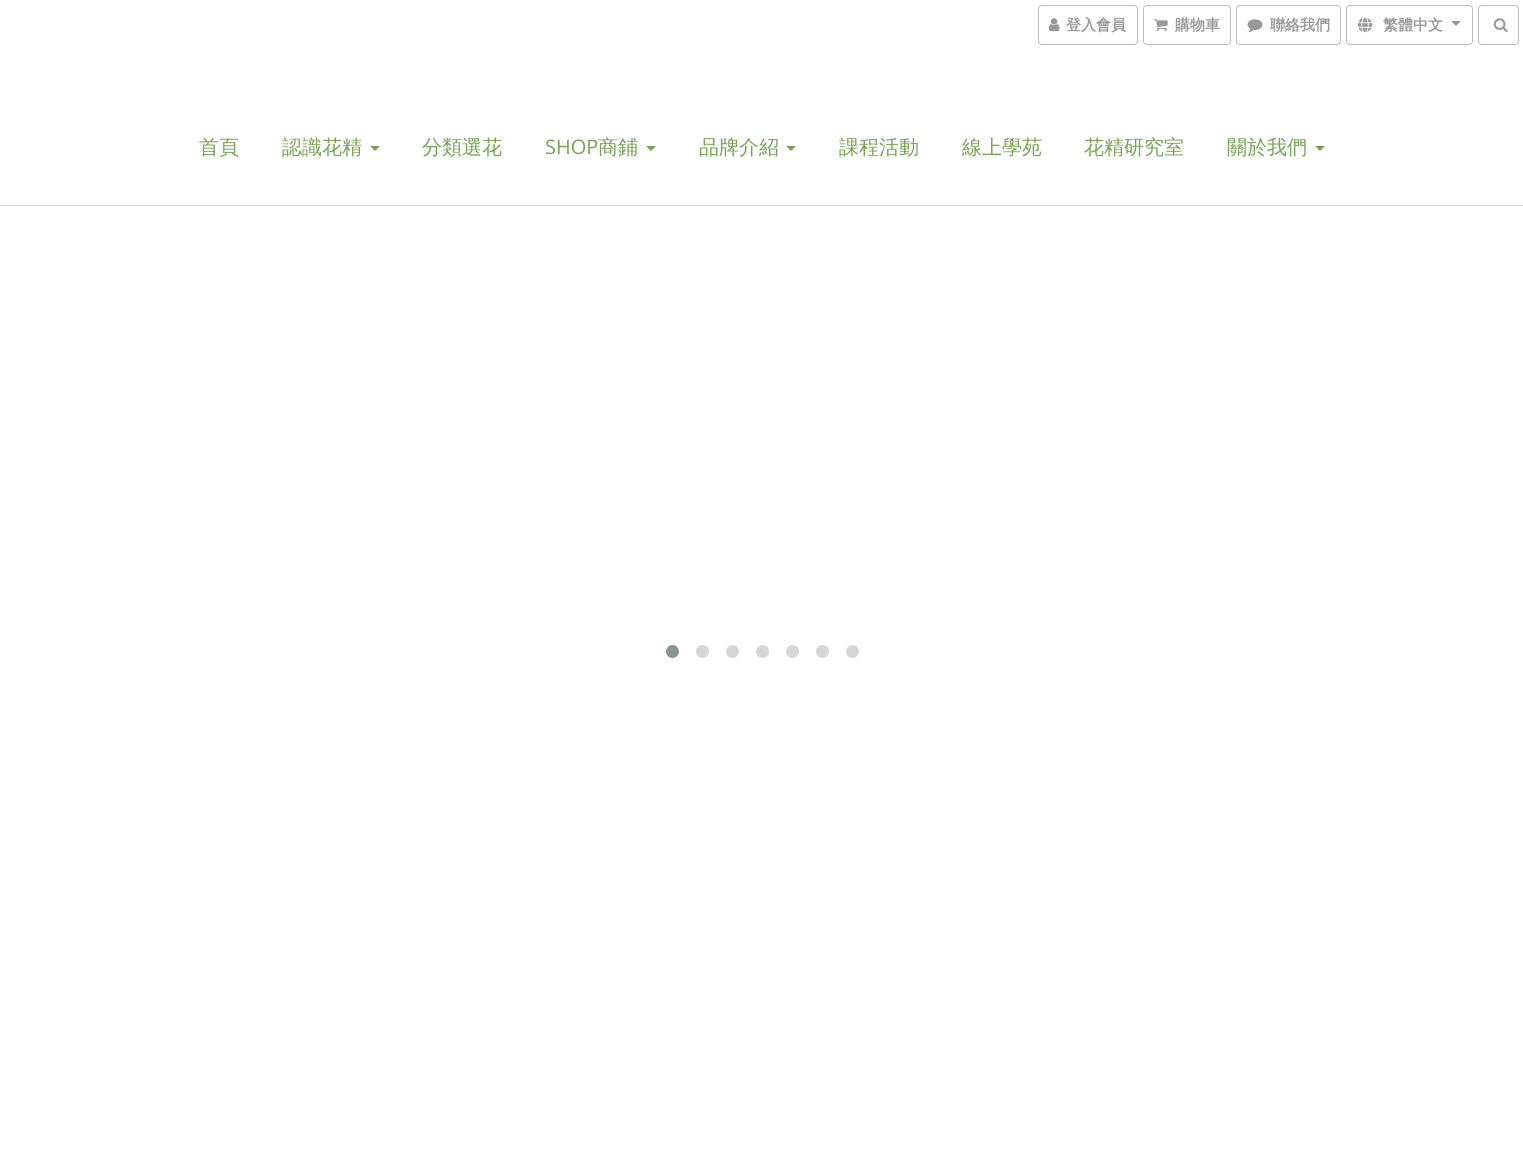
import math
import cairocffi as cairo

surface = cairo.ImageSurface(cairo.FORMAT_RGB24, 1523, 1172)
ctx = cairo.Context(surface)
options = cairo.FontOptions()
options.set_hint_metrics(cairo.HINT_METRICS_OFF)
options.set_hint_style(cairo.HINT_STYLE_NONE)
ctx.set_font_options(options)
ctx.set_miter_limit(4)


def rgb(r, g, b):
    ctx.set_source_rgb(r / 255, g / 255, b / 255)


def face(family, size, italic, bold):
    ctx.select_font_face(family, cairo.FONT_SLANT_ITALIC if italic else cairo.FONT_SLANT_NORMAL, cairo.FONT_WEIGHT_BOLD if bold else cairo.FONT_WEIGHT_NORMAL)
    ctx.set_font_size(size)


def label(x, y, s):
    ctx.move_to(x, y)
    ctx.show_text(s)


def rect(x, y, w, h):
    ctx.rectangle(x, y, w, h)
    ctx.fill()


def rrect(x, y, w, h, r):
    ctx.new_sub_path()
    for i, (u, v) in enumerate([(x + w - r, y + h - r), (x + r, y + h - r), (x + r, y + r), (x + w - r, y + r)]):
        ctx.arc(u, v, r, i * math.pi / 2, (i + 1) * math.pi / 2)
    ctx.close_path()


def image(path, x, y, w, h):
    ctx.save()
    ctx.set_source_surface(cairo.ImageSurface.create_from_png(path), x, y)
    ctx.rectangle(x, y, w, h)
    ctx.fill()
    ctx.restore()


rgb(255, 255, 255)
ctx.paint()
rrect(1038.5, 5.5, 99, 39, 3.5)
rgb(187, 187, 187)
ctx.set_line_width(1)
ctx.stroke()
image('image0.png', 1048, 18, 12, 14)
face('WenQuanYi Zen Hei', 15, 0, 1)
rgb(153, 153, 153)
label(1066, 30, '登入會員')
rrect(1143.5, 5.5, 87, 39, 3.5)
rgb(187, 187, 187)
ctx.stroke()
image('image1.png', 1153, 19, 15, 12)
rgb(153, 153, 153)
label(1175, 30, '購物車')
rrect(1236.5, 5.5, 104, 39, 3.5)
rgb(187, 187, 187)
ctx.stroke()
image('image2.png', 1247, 19, 16, 13)
rgb(153, 153, 153)
label(1270, 30, '聯絡我們')
rrect(1346.5, 5.5, 126, 39, 3.5)
rgb(187, 187, 187)
ctx.stroke()
image('image3.png', 1358, 18, 15, 15)
rgb(153, 153, 153)
label(1383, 30, '繁體中文')
ctx.new_path()
ctx.move_to(1451, 21)
ctx.line_to(1461, 21)
ctx.line_to(1456, 26)
ctx.close_path()
ctx.fill()
rrect(1478.5, 5.5, 40, 39, 3.5)
rgb(187, 187, 187)
ctx.stroke()
image('image4.png', 1493, 18, 15, 15)
rgb(224, 224, 224)
rect(0, 205, 1523, 1)
face('WenQuanYi Zen Hei Medium', 20, 0, 0)
rgb(117, 164, 84)
label(199, 154, '首頁')
label(282, 154, '認識花精')
ctx.new_path()
ctx.move_to(370, 146)
ctx.line_to(380, 146)
ctx.line_to(375, 151)
ctx.close_path()
ctx.fill()
label(422, 154, '分類選花')
face('Open Sans', 20, 0, 0)
label(545, 154, 'SHOP')
face('WenQuanYi Zen Hei Medium', 20, 0, 0)
label(598, 154, '商鋪')
ctx.new_path()
ctx.move_to(646, 146)
ctx.line_to(656, 146)
ctx.line_to(651, 151)
ctx.close_path()
ctx.fill()
label(699, 154, '品牌介紹')
ctx.new_path()
ctx.move_to(786, 146)
ctx.line_to(796, 146)
ctx.line_to(791, 151)
ctx.close_path()
ctx.fill()
label(839, 154, '課程活動')
label(962, 154, '線上學苑')
label(1084, 154, '花精研究室')
label(1227, 154, '關於我們')
ctx.new_path()
ctx.move_to(1315, 146)
ctx.line_to(1325, 146)
ctx.line_to(1320, 151)
ctx.close_path()
ctx.fill()
rgb(134, 151, 145)
ctx.arc(672.5, 651.5, 6.5, 0, 2 * math.pi)
ctx.fill()
rgb(214, 214, 214)
ctx.arc(702.5, 651.5, 6.5, 0, 2 * math.pi)
ctx.fill()
ctx.arc(732.5, 651.5, 6.5, 0, 2 * math.pi)
ctx.fill()
ctx.arc(762.5, 651.5, 6.5, 0, 2 * math.pi)
ctx.fill()
ctx.arc(792.5, 651.5, 6.5, 0, 2 * math.pi)
ctx.fill()
ctx.arc(822.5, 651.5, 6.5, 0, 2 * math.pi)
ctx.fill()
ctx.arc(852.5, 651.5, 6.5, 0, 2 * math.pi)
ctx.fill()
surface.write_to_png('render.png')
